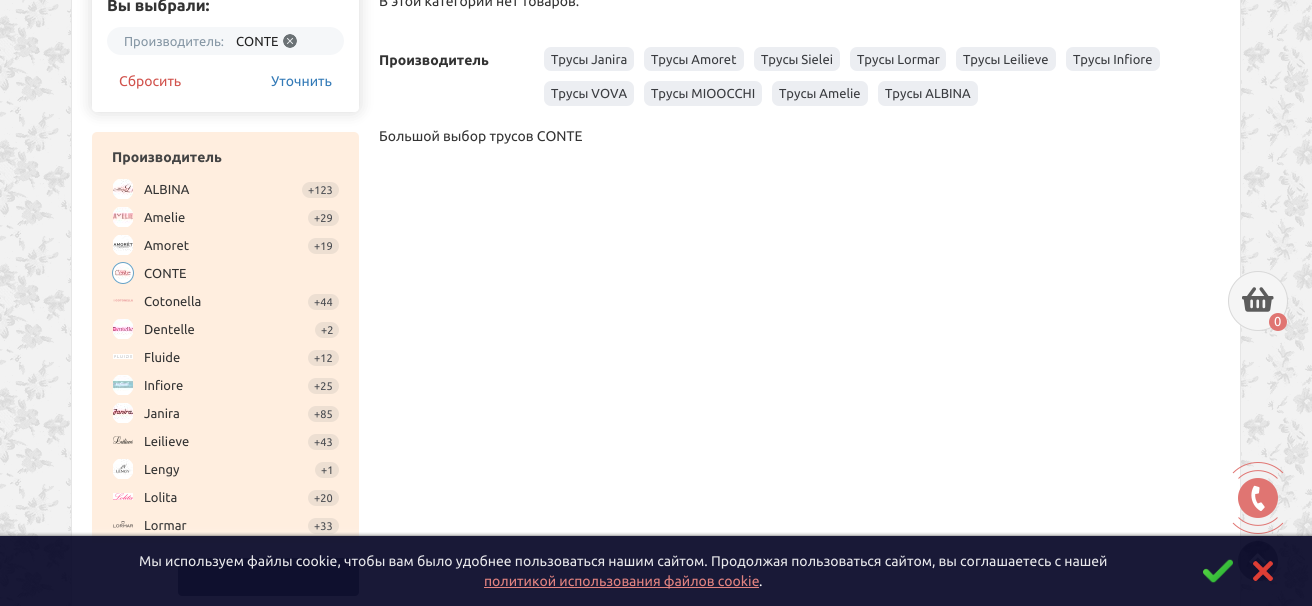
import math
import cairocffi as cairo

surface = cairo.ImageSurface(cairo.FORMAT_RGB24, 1312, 606)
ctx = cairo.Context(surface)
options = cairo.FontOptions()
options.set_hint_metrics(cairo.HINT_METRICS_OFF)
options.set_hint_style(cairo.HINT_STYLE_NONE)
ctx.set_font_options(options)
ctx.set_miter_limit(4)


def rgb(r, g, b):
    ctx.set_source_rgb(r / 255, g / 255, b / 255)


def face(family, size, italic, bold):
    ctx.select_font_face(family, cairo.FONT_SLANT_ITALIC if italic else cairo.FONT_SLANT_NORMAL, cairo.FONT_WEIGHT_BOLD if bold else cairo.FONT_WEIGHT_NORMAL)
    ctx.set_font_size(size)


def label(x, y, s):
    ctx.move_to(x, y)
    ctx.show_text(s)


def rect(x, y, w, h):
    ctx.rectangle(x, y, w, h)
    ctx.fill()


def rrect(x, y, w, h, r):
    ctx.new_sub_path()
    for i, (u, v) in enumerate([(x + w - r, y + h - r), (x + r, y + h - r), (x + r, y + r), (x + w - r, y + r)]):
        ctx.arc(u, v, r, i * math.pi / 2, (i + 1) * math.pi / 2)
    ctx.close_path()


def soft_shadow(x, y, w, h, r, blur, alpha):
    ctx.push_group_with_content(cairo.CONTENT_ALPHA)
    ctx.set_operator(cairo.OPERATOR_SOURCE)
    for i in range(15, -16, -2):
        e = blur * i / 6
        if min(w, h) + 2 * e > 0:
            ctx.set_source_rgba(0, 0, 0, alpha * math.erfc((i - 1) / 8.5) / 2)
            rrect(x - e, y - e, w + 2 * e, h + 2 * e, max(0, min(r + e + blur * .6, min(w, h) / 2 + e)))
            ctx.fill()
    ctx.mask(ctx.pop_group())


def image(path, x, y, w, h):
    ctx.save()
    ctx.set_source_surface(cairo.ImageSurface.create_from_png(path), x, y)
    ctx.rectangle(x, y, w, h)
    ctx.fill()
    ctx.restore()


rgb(255, 255, 255)
ctx.paint()
image('image0.png', 0, 0, 1312, 606)
rgb(255, 255, 255)
rect(72, 0, 1168, 606)
rgb(230, 230, 230)
rect(1240, 0, 1, 606)
rect(71, 0, 1, 606)
ctx.save()
ctx.set_fill_rule(cairo.FILL_RULE_EVEN_ODD)
ctx.new_path()
ctx.move_to(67, 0)
ctx.line_to(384, 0)
ctx.line_to(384, 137)
ctx.line_to(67, 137)
ctx.close_path()
ctx.move_to(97, -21)
ctx.line_to(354, -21)
ctx.curve_to(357, -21, 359, -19, 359, -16)
ctx.line_to(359, 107)
ctx.curve_to(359, 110, 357, 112, 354, 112)
ctx.line_to(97, 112)
ctx.curve_to(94, 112, 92, 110, 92, 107)
ctx.line_to(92, -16)
ctx.curve_to(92, -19, 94, -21, 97, -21)
ctx.close_path()
ctx.clip()
rgb(0, 0, 0)
soft_shadow(92, -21, 267, 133, 5, 8, 0.15)
ctx.restore()
face('Ubuntu', 16, 0, 1)
rgb(51, 51, 51)
label(107, 11, 'Вы выбрали:')
rgb(245, 247, 249)
rrect(107, 27, 237, 28, 14)
ctx.fill()
face('Ubuntu', 13, 0, 0)
rgb(133, 150, 164)
label(124, 46, 'Производитель:')
rgb(34, 34, 34)
label(236, 46, 'CONTE')
image('image1.png', 283, 34, 14, 14)
face('Ubuntu', 14, 0, 0)
rgb(209, 82, 76)
label(119, 86, 'Сбросить')
rgb(51, 122, 183)
label(271, 86, 'Уточнить')
rgb(255, 238, 223)
rrect(92, 132, 267, 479, 5)
ctx.fill()
face('Ubuntu', 14, 0, 1)
rgb(68, 68, 68)
label(112, 162, 'Производитель')
image('image2.png', 113, 179, 20, 20)
face('Ubuntu', 13, 0, 0)
rgb(51, 51, 51)
label(144, 194, 'ALBINA')
rgb(237, 223, 210)
rrect(302, 182, 37, 16, 8)
ctx.fill()
face('Ubuntu', 11, 0, 0)
rgb(70, 73, 78)
label(308, 194, '+123')
image('image3.png', 113, 207, 20, 20)
face('Ubuntu', 13, 0, 0)
rgb(51, 51, 51)
label(144, 222, 'Amelie')
rgb(237, 223, 210)
rrect(308, 210, 31, 16, 8)
ctx.fill()
face('Ubuntu', 11, 0, 0)
rgb(70, 73, 78)
label(314, 222, '+29')
image('image4.png', 113, 235, 20, 20)
face('Ubuntu', 13, 0, 0)
rgb(51, 51, 51)
label(144, 250, 'Amoret')
rgb(237, 223, 210)
rrect(308, 238, 31, 16, 8)
ctx.fill()
face('Ubuntu', 11, 0, 0)
rgb(70, 73, 78)
label(314, 250, '+19')
image('image5.png', 113, 263, 20, 20)
ctx.arc(123, 273, 9, 0, 2 * math.pi)
rgb(255, 255, 255)
ctx.stroke()
ctx.arc(123, 273, 10.5, 0, 2 * math.pi)
rgb(101, 162, 199)
ctx.set_line_width(1)
ctx.stroke()
face('Ubuntu', 13, 0, 0)
rgb(51, 51, 51)
label(144, 278, 'CONTE')
image('image6.png', 113, 299, 20, 3)
label(144, 306, 'Cotonella')
rgb(237, 223, 210)
rrect(308, 294, 31, 16, 8)
ctx.fill()
face('Ubuntu', 11, 0, 0)
rgb(70, 73, 78)
label(314, 306, '+44')
image('image7.png', 113, 319, 20, 20)
face('Ubuntu', 13, 0, 0)
rgb(51, 51, 51)
label(144, 334, 'Dentelle')
rgb(237, 223, 210)
rrect(315, 322, 24, 16, 8)
ctx.fill()
face('Ubuntu', 11, 0, 0)
rgb(70, 73, 78)
label(321, 334, '+2')
image('image8.png', 113, 354, 20, 5)
face('Ubuntu', 13, 0, 0)
rgb(51, 51, 51)
label(144, 362, 'Fluide')
rgb(237, 223, 210)
rrect(308, 350, 31, 16, 8)
ctx.fill()
face('Ubuntu', 11, 0, 0)
rgb(70, 73, 78)
label(314, 362, '+12')
image('image9.png', 113, 375, 20, 20)
face('Ubuntu', 13, 0, 0)
rgb(51, 51, 51)
label(144, 390, 'Infiore')
rgb(237, 223, 210)
rrect(308, 378, 31, 16, 8)
ctx.fill()
face('Ubuntu', 11, 0, 0)
rgb(70, 73, 78)
label(314, 390, '+25')
image('image10.png', 113, 403, 20, 20)
face('Ubuntu', 13, 0, 0)
rgb(51, 51, 51)
label(144, 418, 'Janira')
rgb(237, 223, 210)
rrect(308, 406, 31, 16, 8)
ctx.fill()
face('Ubuntu', 11, 0, 0)
rgb(70, 73, 78)
label(314, 418, '+85')
image('image11.png', 113, 436, 20, 8)
face('Ubuntu', 13, 0, 0)
rgb(51, 51, 51)
label(144, 446, 'Leilieve')
rgb(237, 223, 210)
rrect(308, 434, 31, 16, 8)
ctx.fill()
face('Ubuntu', 11, 0, 0)
rgb(70, 73, 78)
label(314, 446, '+43')
image('image12.png', 113, 459, 20, 20)
face('Ubuntu', 13, 0, 0)
rgb(51, 51, 51)
label(144, 474, 'Lengy')
rgb(237, 223, 210)
rrect(315, 462, 24, 16, 8)
ctx.fill()
face('Ubuntu', 11, 0, 0)
rgb(70, 73, 78)
label(321, 474, '+1')
image('image13.png', 113, 493, 20, 7)
face('Ubuntu', 13, 0, 0)
rgb(51, 51, 51)
label(144, 502, 'Lolita')
rgb(237, 223, 210)
rrect(308, 490, 31, 16, 8)
ctx.fill()
face('Ubuntu', 11, 0, 0)
rgb(70, 73, 78)
label(314, 502, '+20')
image('image14.png', 113, 521, 20, 7)
face('Ubuntu', 13, 0, 0)
rgb(51, 51, 51)
label(144, 530, 'Lormar')
rgb(237, 223, 210)
rrect(308, 518, 31, 16, 8)
ctx.fill()
face('Ubuntu', 11, 0, 0)
rgb(70, 73, 78)
label(314, 530, '+33')
image('image15.png', 113, 543, 20, 5)
rgb(255, 255, 255)
soft_shadow(82, 538, 287, 58, 0, 5, 1)
rgb(255, 255, 255)
rect(92, 588, 267, 18)
rgb(158, 163, 165)
rrect(178, 558, 181, 38, 4)
ctx.fill()
face('Ubuntu', 14, 0, 0)
rgb(51, 51, 51)
label(379, 6, 'В этой категории нет товаров.')
face('Ubuntu', 14, 0, 1)
label(379, 65, 'Производитель')
rgb(236, 238, 242)
rrect(544, 47, 90, 24, 7)
ctx.fill()
face('Ubuntu', 13, 0, 0)
rgb(58, 60, 64)
label(551, 64, 'Трусы Janira')
rgb(236, 238, 242)
rrect(644, 47, 100, 24, 7)
ctx.fill()
rgb(58, 60, 64)
label(651, 64, 'Трусы Amoret')
rgb(236, 238, 242)
rrect(754, 47, 86, 24, 7)
ctx.fill()
rgb(58, 60, 64)
label(761, 64, 'Трусы Sielei')
rgb(236, 238, 242)
rrect(850, 47, 96, 24, 7)
ctx.fill()
rgb(58, 60, 64)
label(857, 64, 'Трусы Lormar')
rgb(236, 238, 242)
rrect(956, 47, 100, 24, 7)
ctx.fill()
rgb(58, 60, 64)
label(963, 64, 'Трусы Leilieve')
rgb(236, 238, 242)
rrect(1066, 47, 94, 24, 7)
ctx.fill()
rgb(58, 60, 64)
label(1073, 64, 'Трусы Infiore')
rgb(236, 238, 242)
rrect(544, 81, 90, 25, 7)
ctx.fill()
rgb(58, 60, 64)
label(551, 98, 'Трусы VOVA')
rgb(236, 238, 242)
rrect(644, 81, 118, 25, 7)
ctx.fill()
rgb(58, 60, 64)
label(651, 98, 'Трусы MIOOCCHI')
rgb(236, 238, 242)
rrect(772, 81, 96, 25, 7)
ctx.fill()
rgb(58, 60, 64)
label(779, 98, 'Трусы Amelie')
rgb(236, 238, 242)
rrect(878, 81, 100, 25, 7)
ctx.fill()
rgb(58, 60, 64)
label(885, 98, 'Трусы ALBINA')
face('Ubuntu', 14, 0, 0)
rgb(51, 51, 51)
label(379, 141, 'Большой выбор трусов CONTE')
ctx.set_source_rgba(0, 0, 0, 0.3)
ctx.new_path()
ctx.arc(1258, 561, 20, 0, 2 * math.pi)
ctx.fill()
image('image16.png', 1249, 553, 18, 11)
rgb(245, 245, 245)
ctx.arc(1258, 301, 30, 0, 2 * math.pi)
ctx.fill()
ctx.arc(1258, 301, 29.5, 0, 2 * math.pi)
ctx.set_source_rgba(0, 0, 0, 0.12)
ctx.stroke()
image('image17.png', 1242, 287, 32, 25)
rgb(224, 117, 114)
ctx.arc(1278, 322, 9, 0, 2 * math.pi)
ctx.fill()
face('Ubuntu', 13, 0, 0)
rgb(255, 255, 255)
label(1274, 326, '0')
rgb(224, 117, 114)
ctx.new_path()
ctx.arc(1258, 498, 20, 0, 2 * math.pi)
ctx.fill()
ctx.new_path()
ctx.move_to(1238.5, 478.5)
ctx.curve_to(1249, 468, 1267, 468, 1277.5, 478.5)
ctx.move_to(1277.5, 517.5)
ctx.curve_to(1267, 528, 1249, 528, 1238.5, 517.5)
ctx.stroke()
ctx.new_path()
ctx.move_to(1233, 473)
ctx.curve_to(1246.5, 459, 1269.5, 459, 1283, 473)
ctx.stroke()
ctx.new_path()
ctx.move_to(1283, 523)
ctx.curve_to(1269.5, 537, 1246.5, 537, 1233, 523)
ctx.stroke()
image('image18.png', 1251, 485, 14, 26)
ctx.save()
ctx.rectangle(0, 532, 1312, 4)
ctx.clip()
rgb(64, 64, 64)
soft_shadow(-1, 536, 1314, 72, 0, 2, 0.9)
ctx.restore()
ctx.set_source_rgba(0, 0, 0.133, 0.9)
rect(0, 536, 1312, 70)
face('Ubuntu', 14, 0, 0)
rgb(232, 232, 235)
label(139, 566, 'Мы используем файлы cookie, чтобы вам было удобнее пользоваться нашим сайтом. Продолжая пользоваться сайтом, вы соглашаетесь с нашей')
rgb(227, 131, 128)
rect(484, 587, 275, 1)
label(484, 586, 'политикой использования файлов cookie')
rgb(255, 255, 255)
label(759, 586, '.')
image('image19.png', 1203, 559, 30, 24)
image('image20.png', 1253, 561, 20, 20)
surface.write_to_png('render.png')
